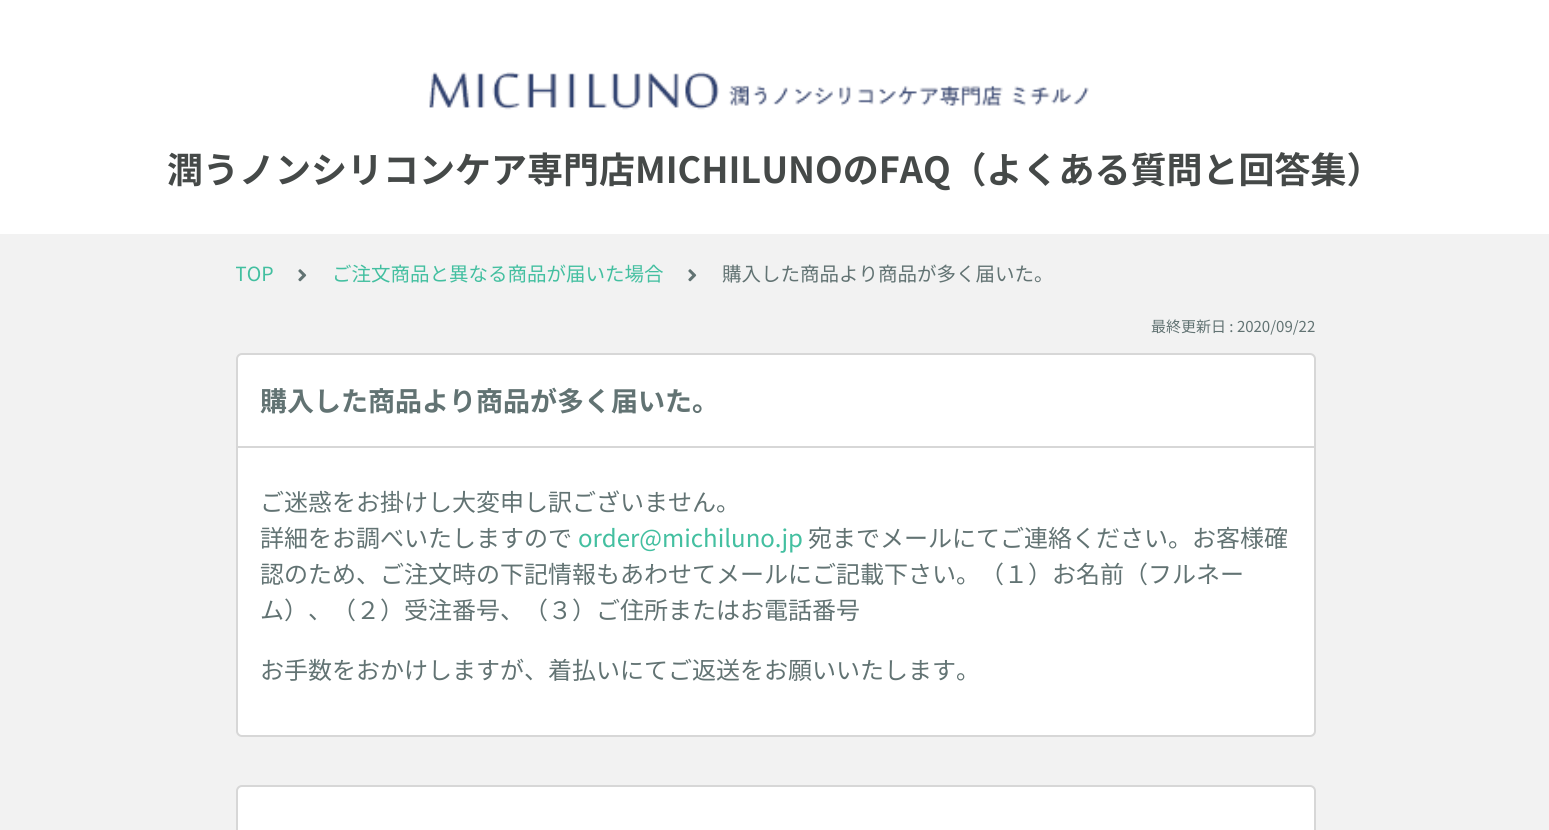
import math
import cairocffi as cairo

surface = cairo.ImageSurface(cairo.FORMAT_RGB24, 1549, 830)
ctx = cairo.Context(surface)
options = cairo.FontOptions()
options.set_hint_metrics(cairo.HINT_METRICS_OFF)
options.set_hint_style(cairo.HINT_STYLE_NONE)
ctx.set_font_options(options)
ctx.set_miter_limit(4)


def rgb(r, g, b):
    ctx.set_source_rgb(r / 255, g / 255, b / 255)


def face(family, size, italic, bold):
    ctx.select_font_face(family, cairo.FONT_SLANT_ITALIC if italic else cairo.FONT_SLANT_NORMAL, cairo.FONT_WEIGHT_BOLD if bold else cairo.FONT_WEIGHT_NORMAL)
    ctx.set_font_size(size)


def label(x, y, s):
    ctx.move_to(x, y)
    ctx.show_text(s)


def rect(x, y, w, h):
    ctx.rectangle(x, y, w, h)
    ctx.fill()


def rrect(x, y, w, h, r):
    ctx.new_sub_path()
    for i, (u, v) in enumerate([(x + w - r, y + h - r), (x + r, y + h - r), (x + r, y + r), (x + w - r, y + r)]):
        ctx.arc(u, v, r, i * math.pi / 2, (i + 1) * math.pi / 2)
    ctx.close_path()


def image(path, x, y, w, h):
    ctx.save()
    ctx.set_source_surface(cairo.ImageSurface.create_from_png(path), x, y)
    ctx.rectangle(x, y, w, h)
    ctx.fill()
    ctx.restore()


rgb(242, 242, 242)
ctx.paint()
rgb(255, 255, 255)
rect(0, 0, 1549, 234)
image('image0.png', 429, 72, 660, 38)
face('Noto Sans JP', 36, 0, 1)
rgb(69, 73, 72)
label(167, 183, '潤うノンシリコンケア専門店MICHILUNOのFAQ（よくある質問と回答集）')
ctx.save()
ctx.rectangle(236, 258, 1080, 32)
ctx.clip()
face('Noto Sans JP', 19.5, 0, 0)
rgb(67, 191, 160)
label(235, 281, 'TOP')
ctx.restore()
image('image1.png', 298, 269, 9, 13)
face('Noto Sans JP', 19.5, 0, 0)
rgb(67, 191, 160)
label(332, 281, 'ご注文商品と異なる商品が届いた場合')
image('image1.png', 688, 269, 9, 13)
rgb(98, 115, 115)
label(722, 281, '購入した商品より商品が多く届いた。')
face('Noto Sans JP', 15, 0, 0)
label(1151, 332, '最終更新日 : 2020/09/22')
rgb(255, 255, 255)
rrect(237, 354, 1078, 382, 5)
ctx.fill_preserve()
rgb(215, 215, 215)
ctx.stroke()
rect(237, 446, 1077, 2)
face('Noto Sans JP', 27, 0, 1)
rgb(98, 115, 115)
label(260, 411, '購入した商品より商品が多く届いた。')
face('Noto Sans JP', 24, 0, 0)
label(260, 511, 'ご迷惑をお掛けし大変申し訳ございません。')
label(260, 547, '詳細をお調べいたしますので')
rgb(67, 191, 160)
label(578, 547, 'order@michiluno.jp')
rgb(98, 115, 115)
label(808, 547, '宛までメールにてご連絡ください。お客様確')
label(260, 583, '認のため、ご注文時の下記情報もあわせてメールにご記載下さい。（１）お名前（フルネー')
label(260, 619, 'ム）、（２）受注番号、（３）ご住所またはお電話番号')
label(260, 679, 'お手数をおかけしますが、着払いにてご返送をお願いいたします。')
rgb(255, 255, 255)
rrect(237, 786, 1078, 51, 5)
ctx.fill_preserve()
rgb(215, 215, 215)
ctx.stroke()
surface.write_to_png('render.png')
